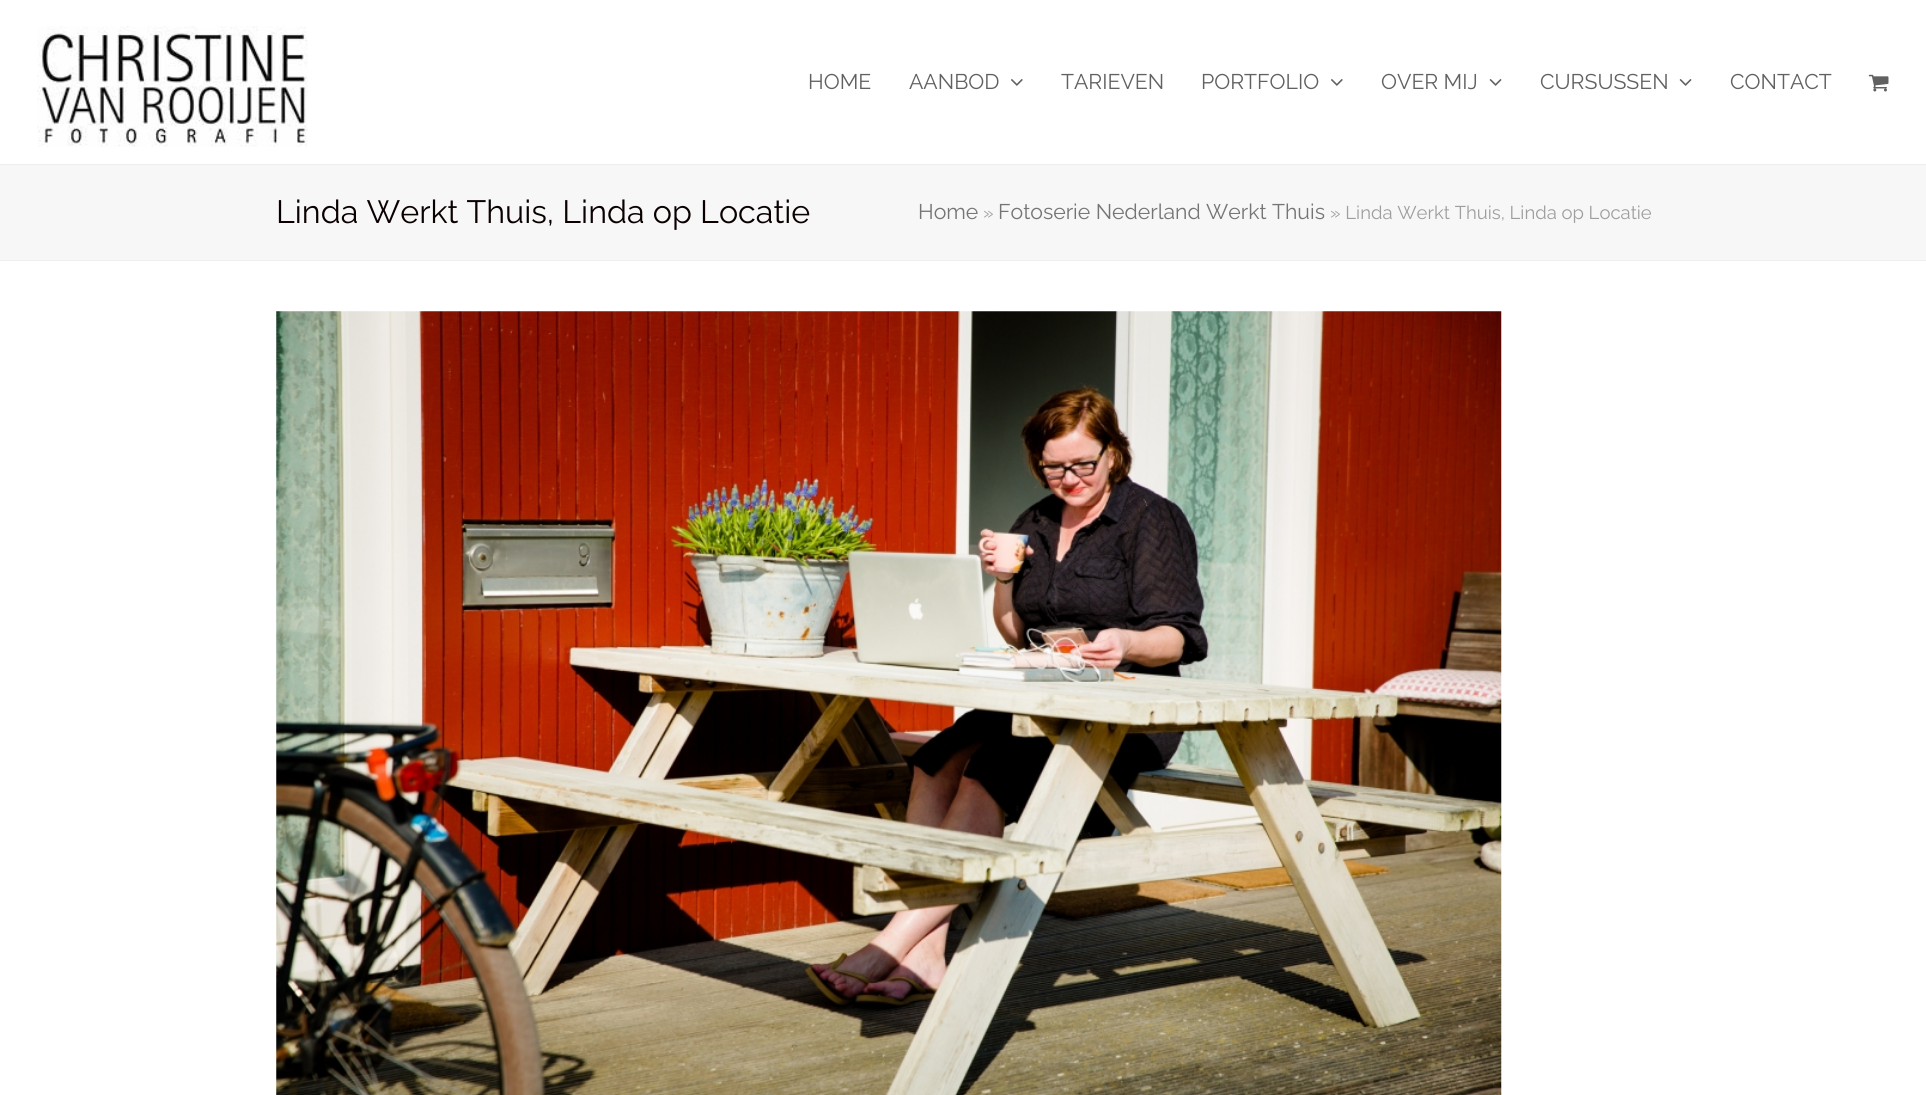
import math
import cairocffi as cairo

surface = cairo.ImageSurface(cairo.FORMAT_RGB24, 1926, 1095)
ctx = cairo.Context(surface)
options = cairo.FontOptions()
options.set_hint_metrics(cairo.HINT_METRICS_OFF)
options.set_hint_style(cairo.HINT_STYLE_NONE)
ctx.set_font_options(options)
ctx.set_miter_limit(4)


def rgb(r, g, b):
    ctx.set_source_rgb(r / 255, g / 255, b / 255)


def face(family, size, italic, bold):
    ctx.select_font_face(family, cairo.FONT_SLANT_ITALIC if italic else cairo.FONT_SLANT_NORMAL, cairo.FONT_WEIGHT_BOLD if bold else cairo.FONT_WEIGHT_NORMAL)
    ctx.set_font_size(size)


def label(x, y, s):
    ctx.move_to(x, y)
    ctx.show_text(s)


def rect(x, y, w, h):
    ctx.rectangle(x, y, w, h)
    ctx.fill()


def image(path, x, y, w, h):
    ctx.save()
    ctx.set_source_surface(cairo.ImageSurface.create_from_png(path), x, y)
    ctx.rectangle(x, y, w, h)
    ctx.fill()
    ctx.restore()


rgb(255, 255, 255)
ctx.paint()
image('image0.png', 37, 26, 271, 121)
face('Raleway', 21.25, 0, 0)
rgb(97, 97, 97)
label(808, 89, 'HOME')
label(909, 89, 'AANBOD')
image('image1.png', 1011, 79, 12, 7)
label(1061, 89, 'TARIEVEN')
label(1201, 89, 'PORTFOLIO')
image('image1.png', 1331, 79, 12, 7)
label(1381, 89, 'OVER MIJ')
image('image2.png', 1489, 79, 13, 7)
label(1540, 89, 'CURSUSSEN')
image('image2.png', 1679, 79, 13, 7)
label(1730, 89, 'CONTACT')
image('image3.png', 1868, 74, 21, 18)
rgb(247, 247, 247)
rect(0, 165, 1926, 95)
rgb(238, 238, 238)
rect(0, 164, 1926, 1)
rect(0, 260, 1926, 1)
face('Raleway', 32.25, 0, 0)
rgb(10, 0, 0)
label(276, 223, 'Linda Werkt Thuis, Linda op Locatie')
face('Raleway', 21.25, 0, 0)
rgb(117, 117, 117)
label(918, 219, 'Home')
face('Raleway', 18.5, 0, 0)
rgb(158, 158, 158)
label(983, 219, '»')
face('Raleway', 21.25, 0, 0)
rgb(117, 117, 117)
label(998, 219, 'Fotoserie Nederland Werkt Thuis')
face('Raleway', 18.5, 0, 0)
rgb(158, 158, 158)
label(1330, 219, '» Linda Werkt Thuis, Linda op Locatie')
image('image4.png', 276, 311, 1226, 784)
surface.write_to_png('render.png')
